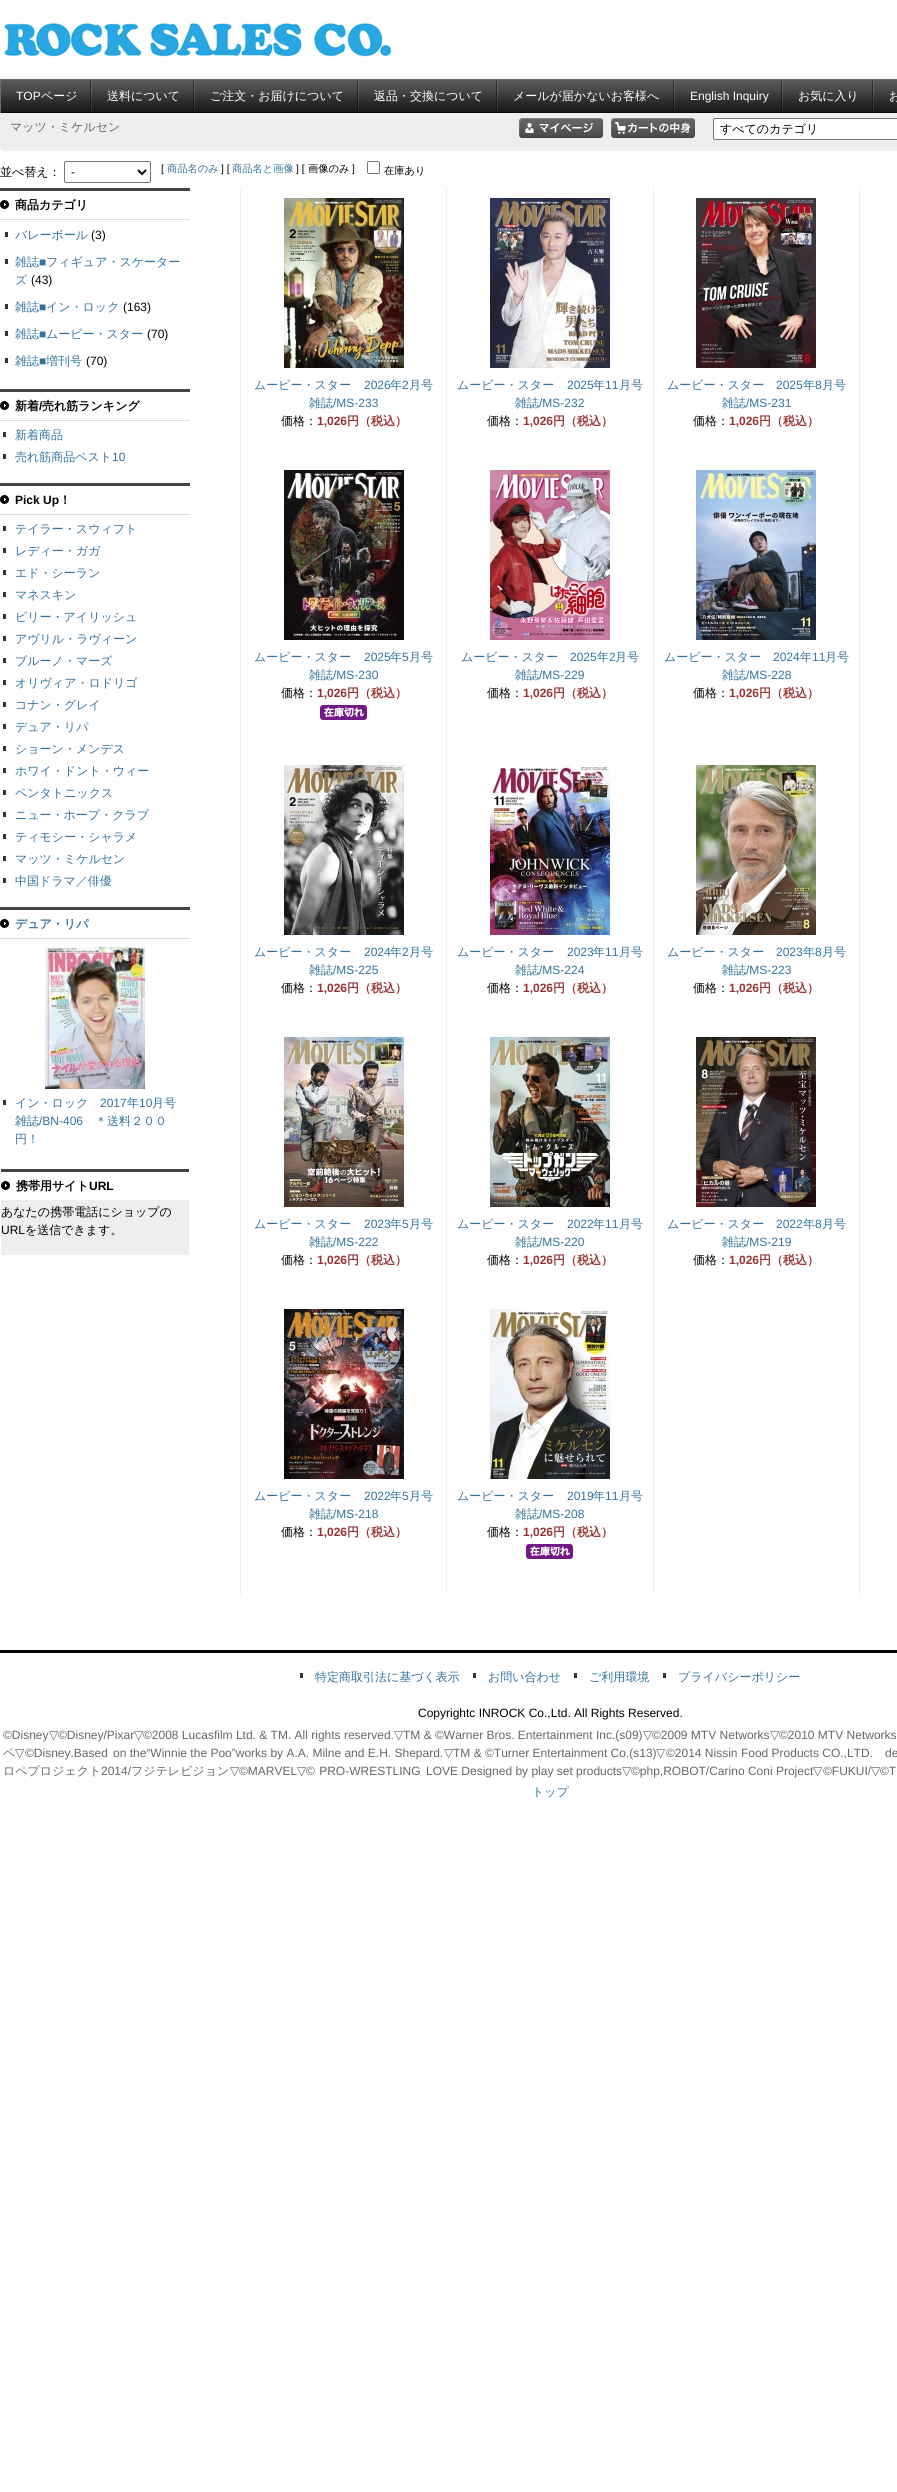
import math
import cairocffi as cairo

surface = cairo.ImageSurface(cairo.FORMAT_RGB24, 897, 2492)
ctx = cairo.Context(surface)
options = cairo.FontOptions()
options.set_hint_metrics(cairo.HINT_METRICS_OFF)
options.set_hint_style(cairo.HINT_STYLE_NONE)
ctx.set_font_options(options)
ctx.set_miter_limit(4)


def rgb(r, g, b):
    ctx.set_source_rgb(r / 255, g / 255, b / 255)


def face(family, size, italic, bold):
    ctx.select_font_face(family, cairo.FONT_SLANT_ITALIC if italic else cairo.FONT_SLANT_NORMAL, cairo.FONT_WEIGHT_BOLD if bold else cairo.FONT_WEIGHT_NORMAL)
    ctx.set_font_size(size)


def label(x, y, s):
    ctx.move_to(x, y)
    ctx.show_text(s)


def tracked(x, y, s, letter, word):
    ctx.move_to(x, y)
    for ch in s:
        ctx.show_text(ch)
        ctx.rel_move_to(letter + word * (ch == ' '), 0)


def rect(x, y, w, h):
    ctx.rectangle(x, y, w, h)
    ctx.fill()


def rrect(x, y, w, h, r):
    ctx.new_sub_path()
    for i, (u, v) in enumerate([(x + w - r, y + h - r), (x + r, y + h - r), (x + r, y + r), (x + w - r, y + r)]):
        ctx.arc(u, v, r, i * math.pi / 2, (i + 1) * math.pi / 2)
    ctx.close_path()


def image(path, x, y, w, h):
    ctx.save()
    ctx.set_source_surface(cairo.ImageSurface.create_from_png(path), x, y)
    ctx.rectangle(x, y, w, h)
    ctx.fill()
    ctx.restore()


rgb(255, 255, 255)
ctx.paint()
image('image0.png', 4, 21, 389, 38)
image('image1.png', 1, 80, 896, 32)
rgb(108, 108, 108)
rect(0, 79, 897, 1)
rgb(11, 11, 11)
rect(0, 112, 897, 1)
rgb(108, 108, 108)
rect(0, 79, 1, 34)
image('image2.png', 90, 80, 2, 32)
face('Liberation Sans', 12, 0, 0)
rgb(255, 255, 255)
label(16, 100, 'TOP')
face('WenQuanYi Zen Hei Medium', 12, 0, 0)
label(41, 100, 'ページ')
image('image2.png', 193, 80, 2, 32)
label(107, 100, '送料について')
image('image2.png', 357, 80, 2, 32)
label(210, 100, 'ご注文・お届けについて')
image('image2.png', 496, 80, 2, 32)
label(374, 100, '返品・交換について')
image('image2.png', 673, 80, 2, 32)
label(513, 100, 'メールが届かないお客様へ')
image('image2.png', 781, 80, 2, 32)
face('Liberation Sans', 12, 0, 0)
label(690, 100, 'English Inquiry')
image('image2.png', 872, 80, 2, 32)
face('WenQuanYi Zen Hei Medium', 12, 0, 0)
label(798, 100, 'お気に入り')
label(889, 100, 'お')
rgb(238, 238, 238)
ctx.new_path()
ctx.move_to(0, 113)
ctx.line_to(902, 113)
ctx.line_to(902, 146)
ctx.curve_to(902, 149, 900, 151, 897, 151)
ctx.line_to(5, 151)
ctx.curve_to(2, 151, 0, 149, 0, 146)
ctx.close_path()
ctx.fill()
rgb(102, 102, 102)
label(10, 131, 'マッツ・ミケルセン')
image('image3.png', 519, 118, 84, 20)
image('image4.png', 611, 118, 84, 20)
rgb(255, 255, 255)
rrect(713.5, 118.5, 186, 21, 1.5)
ctx.fill_preserve()
rgb(118, 118, 118)
ctx.set_line_width(1)
ctx.stroke()
rgb(0, 0, 0)
label(720, 133, 'すべてのカテゴリ')
label(0, 176, '並べ替え：')
rrect(64.5, 161.5, 86, 21, 1.5)
rgb(118, 118, 118)
ctx.stroke()
ctx.new_path()
ctx.move_to(138, 170)
ctx.line_to(142, 174)
ctx.line_to(146, 170)
rgb(0, 0, 0)
ctx.set_line_width(2)
ctx.stroke()
face('Liberation Sans', 12, 0, 0)
label(71, 176, '-')
face('Liberation Sans', 10.25, 0, 0)
label(161, 172, '[')
face('WenQuanYi Zen Hei Medium', 10.25, 0, 0)
rgb(50, 114, 158)
label(167, 172, '商品名のみ')
face('Liberation Sans', 10.25, 0, 0)
rgb(0, 0, 0)
label(221, 172, '] [')
face('WenQuanYi Zen Hei Medium', 10.25, 0, 0)
rgb(50, 114, 158)
label(232, 172, '商品名と画像')
face('Liberation Sans', 10.25, 0, 0)
rgb(0, 0, 0)
label(296, 172, '] [')
face('WenQuanYi Zen Hei Medium', 10.25, 0, 0)
label(308, 172, '画像のみ')
face('Liberation Sans', 10.25, 0, 0)
label(352, 172, ']')
rrect(367.5, 161.5, 12, 12, 1.5)
rgb(118, 118, 118)
ctx.set_line_width(1)
ctx.stroke()
face('WenQuanYi Zen Hei Medium', 10.25, 0, 0)
rgb(0, 0, 0)
label(384, 174, '在庫あり')
image('image5.png', 0, 200, 9, 9)
rgb(67, 67, 67)
rect(0, 188, 190, 3)
rgb(221, 221, 221)
rect(0, 219, 190, 1)
face('WenQuanYi Zen Hei', 12, 0, 1)
rgb(0, 0, 0)
label(15, 209, '商品カテゴリ')
rgb(51, 51, 51)
rect(5, 232, 3, 5)
face('WenQuanYi Zen Hei Medium', 12, 0, 0)
rgb(50, 114, 158)
label(15, 239, 'バレーボール')
face('Liberation Sans', 12, 0, 0)
rgb(0, 0, 0)
label(91, 239, '(3)')
rgb(51, 51, 51)
rect(5, 259, 3, 5)
face('WenQuanYi Zen Hei Medium', 12, 0, 0)
rgb(50, 114, 158)
label(15, 266, '雑誌')
face('Liberation Sans', 12, 0, 0)
label(39, 266, '■')
face('WenQuanYi Zen Hei Medium', 12, 0, 0)
label(46, 266, 'フィギュア・スケーター')
label(15, 284, 'ズ')
face('Liberation Sans', 12, 0, 0)
rgb(0, 0, 0)
label(31, 284, '(43)')
rgb(51, 51, 51)
rect(5, 304, 3, 5)
face('WenQuanYi Zen Hei Medium', 12, 0, 0)
rgb(50, 114, 158)
label(15, 311, '雑誌')
face('Liberation Sans', 12, 0, 0)
label(39, 311, '■')
face('WenQuanYi Zen Hei Medium', 12, 0, 0)
label(46, 311, 'イン・ロック')
face('Liberation Sans', 12, 0, 0)
rgb(0, 0, 0)
label(123, 311, '(163)')
rgb(51, 51, 51)
rect(5, 331, 3, 5)
face('WenQuanYi Zen Hei Medium', 12, 0, 0)
rgb(50, 114, 158)
label(15, 338, '雑誌')
face('Liberation Sans', 12, 0, 0)
label(39, 338, '■')
face('WenQuanYi Zen Hei Medium', 12, 0, 0)
label(46, 338, 'ムービー・スター')
face('Liberation Sans', 12, 0, 0)
rgb(0, 0, 0)
label(147, 338, '(70)')
rgb(51, 51, 51)
rect(5, 358, 3, 5)
face('WenQuanYi Zen Hei Medium', 12, 0, 0)
rgb(50, 114, 158)
label(15, 365, '雑誌')
face('Liberation Sans', 12, 0, 0)
label(39, 365, '■')
face('WenQuanYi Zen Hei Medium', 12, 0, 0)
label(46, 365, '増刊号')
face('Liberation Sans', 12, 0, 0)
rgb(0, 0, 0)
label(86, 365, '(70)')
image('image5.png', 0, 401, 9, 9)
rgb(67, 67, 67)
rect(0, 389, 190, 3)
rgb(221, 221, 221)
rect(0, 420, 190, 1)
face('WenQuanYi Zen Hei', 12, 0, 1)
rgb(0, 0, 0)
label(15, 410, '新着')
face('Liberation Sans', 12, 0, 1)
label(39, 410, '/')
face('WenQuanYi Zen Hei', 12, 0, 1)
label(42, 410, '売れ筋ランキング')
rgb(51, 51, 51)
rect(3, 432, 3, 5)
face('WenQuanYi Zen Hei Medium', 12, 0, 0)
rgb(50, 114, 158)
label(15, 439, '新着商品')
rgb(51, 51, 51)
rect(3, 454, 3, 5)
rgb(50, 114, 158)
label(15, 461, '売れ筋商品ベスト')
face('Liberation Sans', 12, 0, 0)
label(112, 461, '10')
image('image5.png', 0, 495, 9, 9)
rgb(67, 67, 67)
rect(0, 483, 190, 3)
rgb(221, 221, 221)
rect(0, 514, 190, 1)
face('Liberation Sans', 12, 0, 1)
rgb(0, 0, 0)
label(15, 504, 'Pick Up')
face('WenQuanYi Zen Hei', 12, 0, 1)
label(59, 504, '！')
rgb(51, 51, 51)
rect(3, 526, 3, 5)
face('WenQuanYi Zen Hei Medium', 12, 0, 0)
rgb(50, 114, 158)
label(15, 533, 'テイラー・スウィフト')
rgb(51, 51, 51)
rect(3, 548, 3, 5)
rgb(50, 114, 158)
label(15, 555, 'レディー・ガガ')
rgb(51, 51, 51)
rect(3, 570, 3, 5)
rgb(50, 114, 158)
label(15, 577, 'エド・シーラン')
rgb(51, 51, 51)
rect(3, 592, 3, 5)
rgb(50, 114, 158)
label(15, 599, 'マネスキン')
rgb(51, 51, 51)
rect(3, 614, 3, 5)
rgb(50, 114, 158)
label(15, 621, 'ビリー・アイリッシュ')
rgb(51, 51, 51)
rect(3, 636, 3, 5)
rgb(50, 114, 158)
label(15, 643, 'アヴリル・ラヴィーン')
rgb(51, 51, 51)
rect(3, 658, 3, 5)
rgb(50, 114, 158)
label(15, 665, 'ブルーノ・マーズ')
rgb(51, 51, 51)
rect(3, 680, 3, 5)
rgb(50, 114, 158)
label(15, 687, 'オリヴィア・ロドリゴ')
rgb(51, 51, 51)
rect(3, 702, 3, 5)
rgb(50, 114, 158)
label(15, 709, 'コナン・グレイ')
rgb(51, 51, 51)
rect(3, 724, 3, 5)
rgb(50, 114, 158)
label(15, 731, 'デュア・リパ')
rgb(51, 51, 51)
rect(3, 746, 3, 5)
rgb(50, 114, 158)
label(15, 753, 'ショーン・メンデス')
rgb(51, 51, 51)
rect(3, 768, 3, 5)
rgb(50, 114, 158)
label(15, 775, 'ホワイ・ドント・ウィー')
rgb(51, 51, 51)
rect(3, 790, 3, 5)
rgb(50, 114, 158)
label(15, 797, 'ペンタトニックス')
rgb(51, 51, 51)
rect(3, 812, 3, 5)
rgb(50, 114, 158)
label(15, 819, 'ニュー・ホープ・クラブ')
rgb(51, 51, 51)
rect(3, 834, 3, 5)
rgb(50, 114, 158)
label(15, 841, 'ティモシー・シャラメ')
rgb(51, 51, 51)
rect(3, 856, 3, 5)
rgb(50, 114, 158)
label(15, 863, 'マッツ・ミケルセン')
rgb(51, 51, 51)
rect(3, 878, 3, 5)
rgb(50, 114, 158)
label(15, 885, '中国ドラマ／俳優')
image('image5.png', 0, 919, 9, 9)
rgb(67, 67, 67)
rect(0, 907, 190, 3)
rgb(221, 221, 221)
rect(0, 938, 190, 1)
face('WenQuanYi Zen Hei', 12, 0, 1)
rgb(50, 114, 158)
label(15, 928, 'デュア・リパ')
image('image6.png', 45, 947, 100, 142)
rgb(51, 51, 51)
rect(3, 1100, 3, 5)
face('WenQuanYi Zen Hei Medium', 12, 0, 0)
rgb(50, 114, 158)
label(15, 1107, 'イン・ロック')
face('Liberation Sans', 12, 0, 0)
label(100, 1107, '2017')
face('WenQuanYi Zen Hei Medium', 12, 0, 0)
label(127, 1107, '年')
face('Liberation Sans', 12, 0, 0)
label(139, 1107, '10')
face('WenQuanYi Zen Hei Medium', 12, 0, 0)
label(152, 1107, '月号')
label(15, 1125, '雑誌')
face('Liberation Sans', 12, 0, 0)
label(39, 1125, '/BN-406')
face('WenQuanYi Zen Hei Medium', 12, 0, 0)
label(95, 1125, '＊送料２００')
label(15, 1143, '円！')
rgb(238, 238, 238)
rect(1, 1200, 188, 55)
image('image5.png', 1, 1181, 9, 9)
rgb(67, 67, 67)
rect(1, 1169, 188, 3)
face('WenQuanYi Zen Hei', 12, 0, 1)
rgb(0, 0, 0)
label(16, 1190, '携帯用サイト')
face('Liberation Sans', 12, 0, 1)
label(89, 1190, 'URL')
face('WenQuanYi Zen Hei Medium', 12, 0, 0)
label(1, 1216, 'あなたの携帯電話にショップの')
face('Liberation Sans', 12, 0, 0)
label(1, 1234, 'URL')
face('WenQuanYi Zen Hei Medium', 12, 0, 0)
label(25, 1234, 'を送信できます。')
rgb(240, 240, 240)
rect(240, 188, 1, 1407)
image('image7.png', 284, 198, 120, 170)
rgb(50, 114, 158)
label(254, 389, 'ムービー・スター')
face('Liberation Sans', 12, 0, 0)
label(364, 389, '2026')
face('WenQuanYi Zen Hei Medium', 12, 0, 0)
label(390, 389, '年')
face('Liberation Sans', 12, 0, 0)
label(402, 389, '2')
face('WenQuanYi Zen Hei Medium', 12, 0, 0)
label(409, 389, '月号')
label(309, 407, '雑誌')
face('Liberation Sans', 12, 0, 0)
label(333, 407, '/MS-233')
face('WenQuanYi Zen Hei Medium', 12, 0, 0)
rgb(0, 0, 0)
label(281, 425, '価格：')
face('Liberation Sans', 12, 0, 1)
rgb(153, 51, 51)
label(317, 425, '1,026')
face('WenQuanYi Zen Hei', 12, 0, 1)
label(347, 425, '円（税込）')
rgb(240, 240, 240)
rect(446, 188, 1, 1407)
image('image8.png', 490, 198, 120, 170)
face('WenQuanYi Zen Hei Medium', 12, 0, 0)
rgb(50, 114, 158)
label(457, 389, 'ムービー・スター')
face('Liberation Sans', 12, 0, 0)
label(567, 389, '2025')
face('WenQuanYi Zen Hei Medium', 12, 0, 0)
label(593, 389, '年')
face('Liberation Sans', 12, 0, 0)
label(605, 389, '11')
face('WenQuanYi Zen Hei Medium', 12, 0, 0)
label(619, 389, '月号')
label(515, 407, '雑誌')
face('Liberation Sans', 12, 0, 0)
label(539, 407, '/MS-232')
face('WenQuanYi Zen Hei Medium', 12, 0, 0)
rgb(0, 0, 0)
label(487, 425, '価格：')
face('Liberation Sans', 12, 0, 1)
rgb(153, 51, 51)
label(523, 425, '1,026')
face('WenQuanYi Zen Hei', 12, 0, 1)
label(553, 425, '円（税込）')
rgb(240, 240, 240)
rect(859, 188, 1, 1407)
rect(653, 188, 1, 1407)
image('image9.png', 696, 198, 120, 170)
face('WenQuanYi Zen Hei Medium', 12, 0, 0)
rgb(50, 114, 158)
label(667, 389, 'ムービー・スター')
face('Liberation Sans', 12, 0, 0)
label(776, 389, '2025')
face('WenQuanYi Zen Hei Medium', 12, 0, 0)
label(803, 389, '年')
face('Liberation Sans', 12, 0, 0)
label(815, 389, '8')
face('WenQuanYi Zen Hei Medium', 12, 0, 0)
label(822, 389, '月号')
label(722, 407, '雑誌')
face('Liberation Sans', 12, 0, 0)
label(746, 407, '/MS-231')
face('WenQuanYi Zen Hei Medium', 12, 0, 0)
rgb(0, 0, 0)
label(693, 425, '価格：')
face('Liberation Sans', 12, 0, 1)
rgb(153, 51, 51)
label(729, 425, '1,026')
face('WenQuanYi Zen Hei', 12, 0, 1)
label(759, 425, '円（税込）')
image('image10.png', 284, 470, 120, 170)
face('WenQuanYi Zen Hei Medium', 12, 0, 0)
rgb(50, 114, 158)
label(254, 661, 'ムービー・スター')
face('Liberation Sans', 12, 0, 0)
label(364, 661, '2025')
face('WenQuanYi Zen Hei Medium', 12, 0, 0)
label(390, 661, '年')
face('Liberation Sans', 12, 0, 0)
label(402, 661, '5')
face('WenQuanYi Zen Hei Medium', 12, 0, 0)
label(409, 661, '月号')
label(309, 679, '雑誌')
face('Liberation Sans', 12, 0, 0)
label(333, 679, '/MS-230')
face('WenQuanYi Zen Hei Medium', 12, 0, 0)
rgb(0, 0, 0)
label(281, 697, '価格：')
face('Liberation Sans', 12, 0, 1)
rgb(153, 51, 51)
label(317, 697, '1,026')
face('WenQuanYi Zen Hei', 12, 0, 1)
label(347, 697, '円（税込）')
image('image11.png', 320, 705, 47, 15)
image('image12.png', 490, 470, 120, 170)
face('WenQuanYi Zen Hei Medium', 12, 0, 0)
rgb(50, 114, 158)
label(461, 661, 'ムービー・スター')
face('Liberation Sans', 12, 0, 0)
label(570, 661, '2025')
face('WenQuanYi Zen Hei Medium', 12, 0, 0)
label(597, 661, '年')
face('Liberation Sans', 12, 0, 0)
label(609, 661, '2')
face('WenQuanYi Zen Hei Medium', 12, 0, 0)
label(615, 661, '月号')
label(515, 679, '雑誌')
face('Liberation Sans', 12, 0, 0)
label(539, 679, '/MS-229')
face('WenQuanYi Zen Hei Medium', 12, 0, 0)
rgb(0, 0, 0)
label(487, 697, '価格：')
face('Liberation Sans', 12, 0, 1)
rgb(153, 51, 51)
label(523, 697, '1,026')
face('WenQuanYi Zen Hei', 12, 0, 1)
label(553, 697, '円（税込）')
image('image13.png', 696, 470, 120, 170)
face('WenQuanYi Zen Hei Medium', 12, 0, 0)
rgb(50, 114, 158)
label(664, 661, 'ムービー・スター')
face('Liberation Sans', 12, 0, 0)
label(773, 661, '2024')
face('WenQuanYi Zen Hei Medium', 12, 0, 0)
label(800, 661, '年')
face('Liberation Sans', 12, 0, 0)
label(812, 661, '11')
face('WenQuanYi Zen Hei Medium', 12, 0, 0)
label(825, 661, '月号')
label(722, 679, '雑誌')
face('Liberation Sans', 12, 0, 0)
label(746, 679, '/MS-228')
face('WenQuanYi Zen Hei Medium', 12, 0, 0)
rgb(0, 0, 0)
label(693, 697, '価格：')
face('Liberation Sans', 12, 0, 1)
rgb(153, 51, 51)
label(729, 697, '1,026')
face('WenQuanYi Zen Hei', 12, 0, 1)
label(759, 697, '円（税込）')
image('image14.png', 284, 765, 120, 170)
face('WenQuanYi Zen Hei Medium', 12, 0, 0)
rgb(50, 114, 158)
label(254, 956, 'ムービー・スター')
face('Liberation Sans', 12, 0, 0)
label(364, 956, '2024')
face('WenQuanYi Zen Hei Medium', 12, 0, 0)
label(390, 956, '年')
face('Liberation Sans', 12, 0, 0)
label(402, 956, '2')
face('WenQuanYi Zen Hei Medium', 12, 0, 0)
label(409, 956, '月号')
label(309, 974, '雑誌')
face('Liberation Sans', 12, 0, 0)
label(333, 974, '/MS-225')
face('WenQuanYi Zen Hei Medium', 12, 0, 0)
rgb(0, 0, 0)
label(281, 992, '価格：')
face('Liberation Sans', 12, 0, 1)
rgb(153, 51, 51)
label(317, 992, '1,026')
face('WenQuanYi Zen Hei', 12, 0, 1)
label(347, 992, '円（税込）')
image('image15.png', 490, 765, 120, 170)
face('WenQuanYi Zen Hei Medium', 12, 0, 0)
rgb(50, 114, 158)
label(457, 956, 'ムービー・スター')
face('Liberation Sans', 12, 0, 0)
label(567, 956, '2023')
face('WenQuanYi Zen Hei Medium', 12, 0, 0)
label(593, 956, '年')
face('Liberation Sans', 12, 0, 0)
label(605, 956, '11')
face('WenQuanYi Zen Hei Medium', 12, 0, 0)
label(619, 956, '月号')
label(515, 974, '雑誌')
face('Liberation Sans', 12, 0, 0)
label(539, 974, '/MS-224')
face('WenQuanYi Zen Hei Medium', 12, 0, 0)
rgb(0, 0, 0)
label(487, 992, '価格：')
face('Liberation Sans', 12, 0, 1)
rgb(153, 51, 51)
label(523, 992, '1,026')
face('WenQuanYi Zen Hei', 12, 0, 1)
label(553, 992, '円（税込）')
image('image16.png', 696, 765, 120, 170)
face('WenQuanYi Zen Hei Medium', 12, 0, 0)
rgb(50, 114, 158)
label(667, 956, 'ムービー・スター')
face('Liberation Sans', 12, 0, 0)
label(776, 956, '2023')
face('WenQuanYi Zen Hei Medium', 12, 0, 0)
label(803, 956, '年')
face('Liberation Sans', 12, 0, 0)
label(815, 956, '8')
face('WenQuanYi Zen Hei Medium', 12, 0, 0)
label(822, 956, '月号')
label(722, 974, '雑誌')
face('Liberation Sans', 12, 0, 0)
label(746, 974, '/MS-223')
face('WenQuanYi Zen Hei Medium', 12, 0, 0)
rgb(0, 0, 0)
label(693, 992, '価格：')
face('Liberation Sans', 12, 0, 1)
rgb(153, 51, 51)
label(729, 992, '1,026')
face('WenQuanYi Zen Hei', 12, 0, 1)
label(759, 992, '円（税込）')
image('image17.png', 284, 1037, 120, 170)
face('WenQuanYi Zen Hei Medium', 12, 0, 0)
rgb(50, 114, 158)
label(254, 1228, 'ムービー・スター')
face('Liberation Sans', 12, 0, 0)
label(364, 1228, '2023')
face('WenQuanYi Zen Hei Medium', 12, 0, 0)
label(390, 1228, '年')
face('Liberation Sans', 12, 0, 0)
label(402, 1228, '5')
face('WenQuanYi Zen Hei Medium', 12, 0, 0)
label(409, 1228, '月号')
label(309, 1246, '雑誌')
face('Liberation Sans', 12, 0, 0)
label(333, 1246, '/MS-222')
face('WenQuanYi Zen Hei Medium', 12, 0, 0)
rgb(0, 0, 0)
label(281, 1264, '価格：')
face('Liberation Sans', 12, 0, 1)
rgb(153, 51, 51)
label(317, 1264, '1,026')
face('WenQuanYi Zen Hei', 12, 0, 1)
label(347, 1264, '円（税込）')
image('image18.png', 490, 1037, 120, 170)
face('WenQuanYi Zen Hei Medium', 12, 0, 0)
rgb(50, 114, 158)
label(457, 1228, 'ムービー・スター')
face('Liberation Sans', 12, 0, 0)
label(567, 1228, '2022')
face('WenQuanYi Zen Hei Medium', 12, 0, 0)
label(593, 1228, '年')
face('Liberation Sans', 12, 0, 0)
label(605, 1228, '11')
face('WenQuanYi Zen Hei Medium', 12, 0, 0)
label(619, 1228, '月号')
label(515, 1246, '雑誌')
face('Liberation Sans', 12, 0, 0)
label(539, 1246, '/MS-220')
face('WenQuanYi Zen Hei Medium', 12, 0, 0)
rgb(0, 0, 0)
label(487, 1264, '価格：')
face('Liberation Sans', 12, 0, 1)
rgb(153, 51, 51)
label(523, 1264, '1,026')
face('WenQuanYi Zen Hei', 12, 0, 1)
label(553, 1264, '円（税込）')
image('image19.png', 696, 1037, 120, 170)
face('WenQuanYi Zen Hei Medium', 12, 0, 0)
rgb(50, 114, 158)
label(667, 1228, 'ムービー・スター')
face('Liberation Sans', 12, 0, 0)
label(776, 1228, '2022')
face('WenQuanYi Zen Hei Medium', 12, 0, 0)
label(803, 1228, '年')
face('Liberation Sans', 12, 0, 0)
label(815, 1228, '8')
face('WenQuanYi Zen Hei Medium', 12, 0, 0)
label(822, 1228, '月号')
label(722, 1246, '雑誌')
face('Liberation Sans', 12, 0, 0)
label(746, 1246, '/MS-219')
face('WenQuanYi Zen Hei Medium', 12, 0, 0)
rgb(0, 0, 0)
label(693, 1264, '価格：')
face('Liberation Sans', 12, 0, 1)
rgb(153, 51, 51)
label(729, 1264, '1,026')
face('WenQuanYi Zen Hei', 12, 0, 1)
label(759, 1264, '円（税込）')
image('image20.png', 284, 1309, 120, 170)
face('WenQuanYi Zen Hei Medium', 12, 0, 0)
rgb(50, 114, 158)
label(254, 1500, 'ムービー・スター')
face('Liberation Sans', 12, 0, 0)
label(364, 1500, '2022')
face('WenQuanYi Zen Hei Medium', 12, 0, 0)
label(390, 1500, '年')
face('Liberation Sans', 12, 0, 0)
label(402, 1500, '5')
face('WenQuanYi Zen Hei Medium', 12, 0, 0)
label(409, 1500, '月号')
label(309, 1518, '雑誌')
face('Liberation Sans', 12, 0, 0)
label(333, 1518, '/MS-218')
face('WenQuanYi Zen Hei Medium', 12, 0, 0)
rgb(0, 0, 0)
label(281, 1536, '価格：')
face('Liberation Sans', 12, 0, 1)
rgb(153, 51, 51)
label(317, 1536, '1,026')
face('WenQuanYi Zen Hei', 12, 0, 1)
label(347, 1536, '円（税込）')
image('image21.png', 490, 1309, 120, 170)
face('WenQuanYi Zen Hei Medium', 12, 0, 0)
rgb(50, 114, 158)
label(457, 1500, 'ムービー・スター')
face('Liberation Sans', 12, 0, 0)
label(567, 1500, '2019')
face('WenQuanYi Zen Hei Medium', 12, 0, 0)
label(593, 1500, '年')
face('Liberation Sans', 12, 0, 0)
label(605, 1500, '11')
face('WenQuanYi Zen Hei Medium', 12, 0, 0)
label(619, 1500, '月号')
label(515, 1518, '雑誌')
face('Liberation Sans', 12, 0, 0)
label(539, 1518, '/MS-208')
face('WenQuanYi Zen Hei Medium', 12, 0, 0)
rgb(0, 0, 0)
label(487, 1536, '価格：')
face('Liberation Sans', 12, 0, 1)
rgb(153, 51, 51)
label(523, 1536, '1,026')
face('WenQuanYi Zen Hei', 12, 0, 1)
label(553, 1536, '円（税込）')
image('image11.png', 526, 1544, 47, 15)
rgb(0, 0, 0)
rect(0, 1650, 897, 3)
face('WenQuanYi Zen Hei Medium', 12, 0, 0)
rgb(50, 114, 158)
label(315, 1681, '特定商取引法に基づく表示')
rgb(51, 51, 51)
rect(300, 1673, 3, 5)
rgb(50, 114, 158)
label(488, 1681, 'お問い合わせ')
rgb(51, 51, 51)
rect(473, 1673, 3, 5)
rgb(50, 114, 158)
label(589, 1681, 'ご利用環境')
rgb(51, 51, 51)
rect(574, 1673, 3, 5)
rgb(50, 114, 158)
label(678, 1681, 'プライバシーポリシー')
rgb(51, 51, 51)
rect(663, 1673, 3, 5)
face('Liberation Sans', 12, 0, 0)
rgb(0, 0, 0)
label(418, 1717, 'Copyrightc INROCK Co.,Ltd. All Rights Reserved.')
rgb(102, 102, 102)
label(3, 1739, '©Disney')
face('DejaVu Sans', 12, 0, 0)
label(49, 1739, '▽')
face('Liberation Sans', 12, 0, 0)
label(58, 1739, '©Disney/Pixar')
face('DejaVu Sans', 12, 0, 0)
label(134, 1739, '▽')
face('Liberation Sans', 12, 0, 0)
label(143, 1739, '©2008 Lucasfilm Ltd. & TM. All rights reserved.')
face('DejaVu Sans', 12, 0, 0)
label(394, 1739, '▽')
face('Liberation Sans', 12, 0, 0)
label(403, 1739, 'TM & ©Warner Bros. Entertainment Inc.(s09)')
face('DejaVu Sans', 12, 0, 0)
label(643, 1739, '▽')
face('Liberation Sans', 12, 0, 0)
label(652, 1739, '©2009 MTV Networks')
face('DejaVu Sans', 12, 0, 0)
label(770, 1739, '▽')
face('Liberation Sans', 12, 0, 0)
label(779, 1739, '©2010 MTV Networks')
face('WenQuanYi Zen Hei Medium', 12, 0, 0)
label(3, 1757, 'ペ')
face('DejaVu Sans', 12, 0, 0)
label(15, 1757, '▽')
face('Liberation Sans', 12, 0, 0)
label(25, 1757, '©Disney.Based')
label(113, 1757, 'on the“Winnie the Poo”works by A.A. Milne and E.H. Shepard.')
face('DejaVu Sans', 12, 0, 0)
label(444, 1757, '▽')
face('Liberation Sans', 12, 0, 0)
label(453, 1757, 'TM & ©Turner Entertainment Co.(s13)')
face('DejaVu Sans', 12, 0, 0)
label(656, 1757, '▽')
face('Liberation Sans', 12, 0, 0)
label(666, 1757, '©2014 Nissin Food Products CO.,LTD.')
label(885, 1757, 'de')
face('WenQuanYi Zen Hei Medium', 12, 0, 0)
label(3, 1775, 'ロペプロジェクト')
face('Liberation Sans', 12, 0, 0)
label(101, 1775, '2014/')
face('WenQuanYi Zen Hei Medium', 12, 0, 0)
label(131, 1775, 'フジテレビジョン')
face('DejaVu Sans', 12, 0, 0)
label(230, 1775, '▽')
face('Liberation Sans', 12, 0, 0)
label(239, 1775, '©MARVEL')
face('DejaVu Sans', 12, 0, 0)
label(297, 1775, '▽')
face('Liberation Sans', 12, 0, 0)
tracked(306, 1775, '© PRO-WRESTLING', 0, 1)
label(426, 1775, 'LOVE Designed by play set products')
face('DejaVu Sans', 12, 0, 0)
label(622, 1775, '▽')
face('Liberation Sans', 12, 0, 0)
label(631, 1775, '©php,ROBOT/Carino Coni Project')
face('DejaVu Sans', 12, 0, 0)
label(813, 1775, '▽')
face('Liberation Sans', 12, 0, 0)
label(823, 1775, '©FUKUI/')
face('DejaVu Sans', 12, 0, 0)
label(871, 1775, '▽')
face('Liberation Sans', 12, 0, 0)
label(880, 1775, '©T')
face('WenQuanYi Zen Hei Medium', 12, 0, 0)
rgb(50, 114, 158)
label(532, 1796, 'トップ')
surface.write_to_png('render.png')
